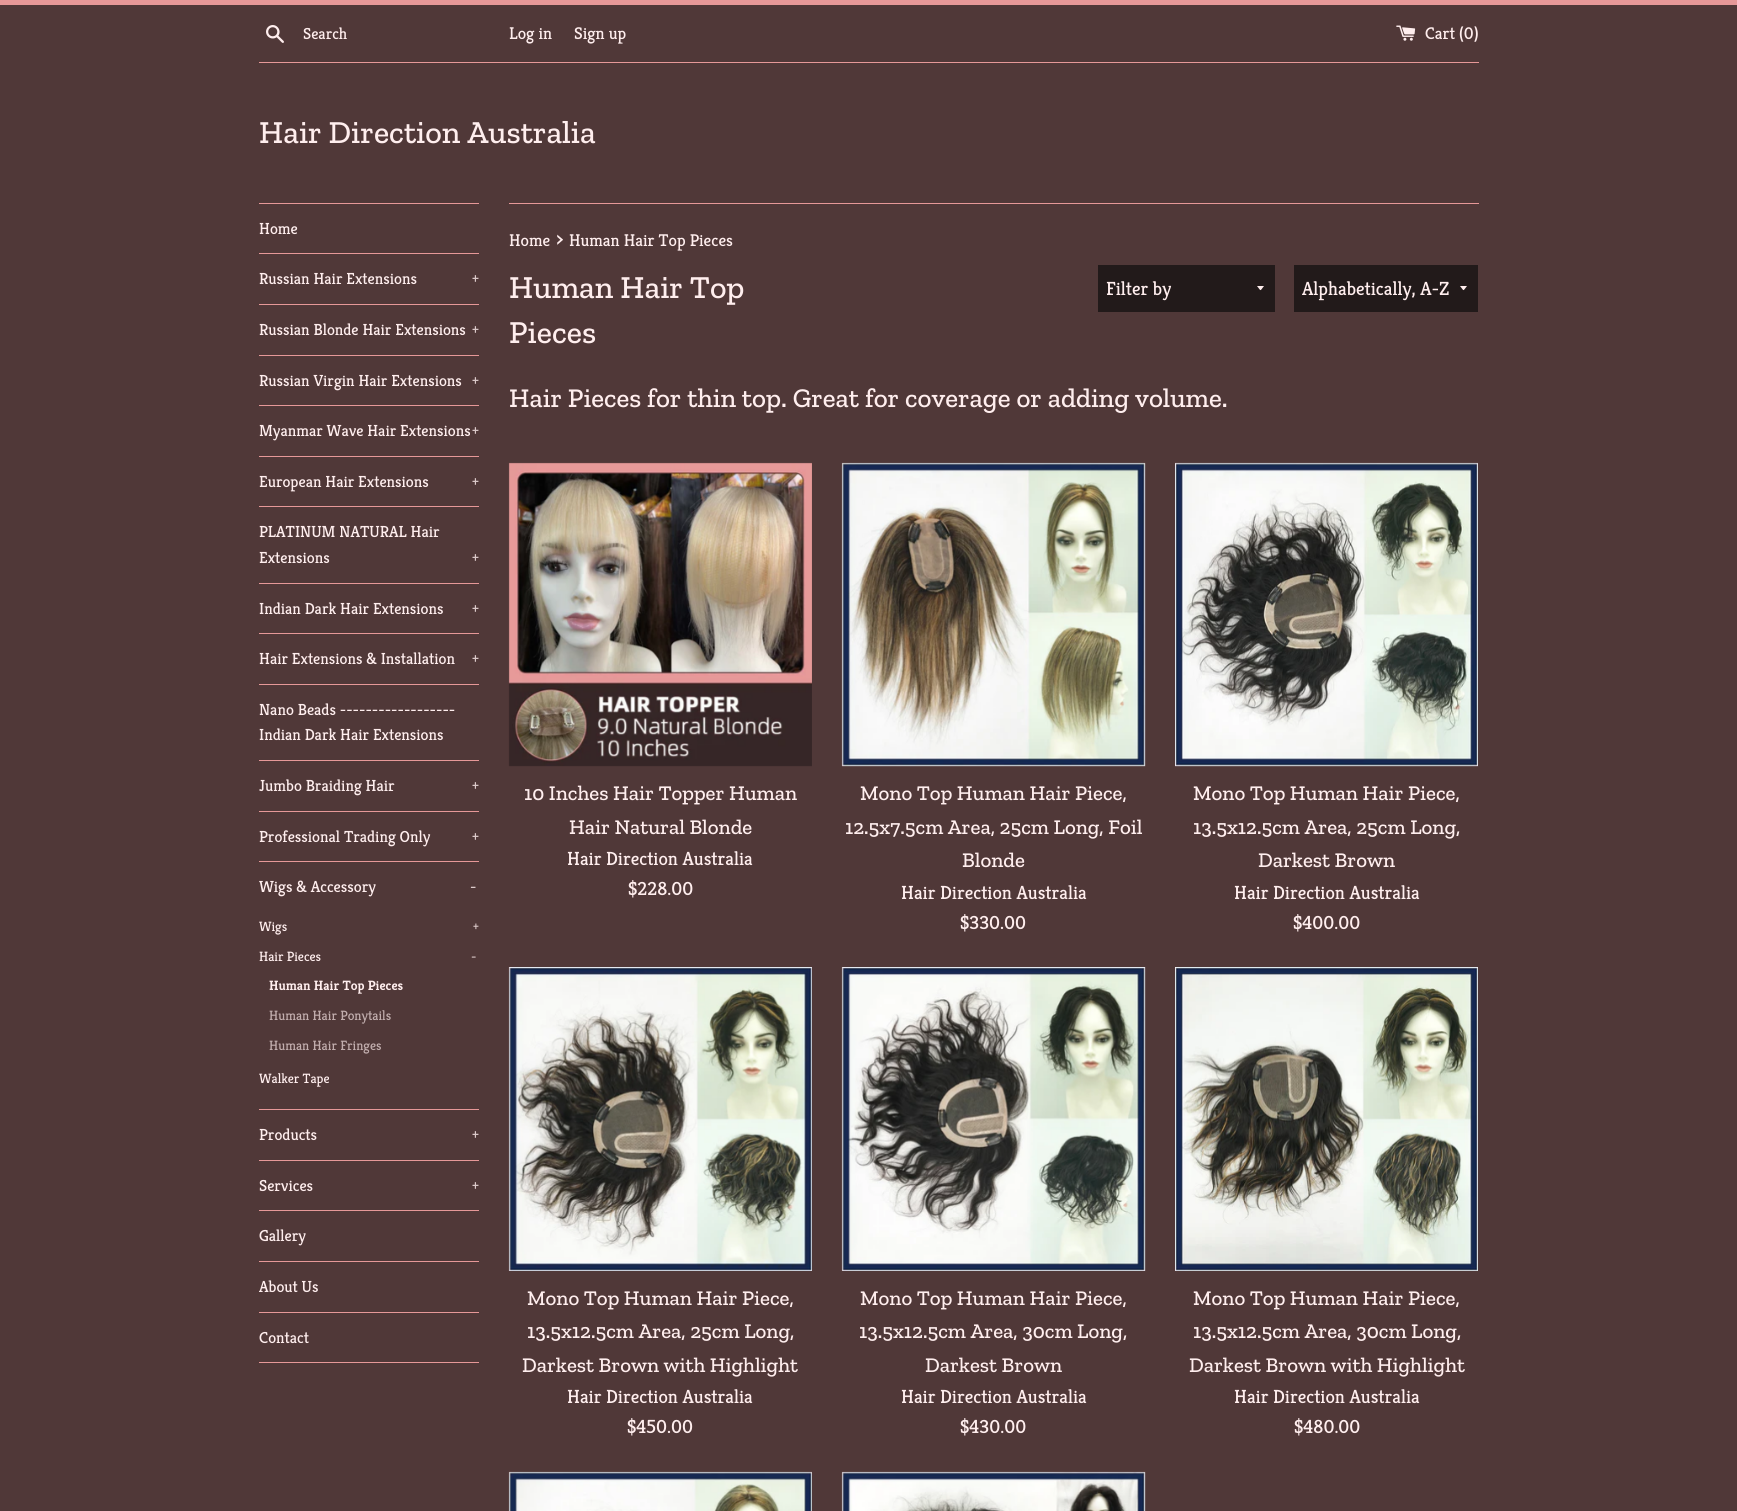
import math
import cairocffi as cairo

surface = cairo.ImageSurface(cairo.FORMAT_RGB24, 1737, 1511)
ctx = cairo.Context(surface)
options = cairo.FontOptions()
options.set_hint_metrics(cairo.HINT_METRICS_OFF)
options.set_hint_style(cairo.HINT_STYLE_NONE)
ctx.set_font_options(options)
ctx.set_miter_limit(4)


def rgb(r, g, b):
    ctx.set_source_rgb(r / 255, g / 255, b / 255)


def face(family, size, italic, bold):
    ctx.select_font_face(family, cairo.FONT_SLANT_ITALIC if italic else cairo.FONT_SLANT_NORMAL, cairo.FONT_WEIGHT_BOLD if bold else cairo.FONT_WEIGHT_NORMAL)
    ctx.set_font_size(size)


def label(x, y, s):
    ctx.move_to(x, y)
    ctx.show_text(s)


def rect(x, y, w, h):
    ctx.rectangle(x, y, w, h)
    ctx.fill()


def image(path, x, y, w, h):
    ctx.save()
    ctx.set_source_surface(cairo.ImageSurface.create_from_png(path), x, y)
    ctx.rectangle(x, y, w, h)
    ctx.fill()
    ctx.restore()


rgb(80, 56, 56)
ctx.paint()
rgb(230, 152, 152)
rect(0, 0, 1737, 5)
image('image0.png', 266, 25, 18, 18)
face('Kreon', 16, 0, 0)
rgb(255, 238, 238)
label(303, 39, 'Search')
face('Kreon', 17, 0, 0)
label(509, 39, 'Log in')
label(574, 39, 'Sign up')
image('image1.png', 1396, 25, 20, 16)
label(1425, 39, 'Cart (0)')
rgb(230, 152, 152)
rect(259, 62, 1220, 1)
face('Zilla Slab Medium', 32, 0, 0)
rgb(255, 238, 238)
label(259, 143, 'Hair Direction Australia')
rgb(230, 152, 152)
rect(259, 203, 220, 1)
rect(259, 253, 220, 1)
face('Kreon', 16, 0, 0)
rgb(255, 238, 238)
label(259, 234, 'Home')
rgb(230, 152, 152)
rect(259, 304, 220, 1)
rgb(255, 238, 238)
label(259, 284, 'Russian Hair Extensions')
rgb(220, 202, 202)
label(472, 284, '+')
rgb(230, 152, 152)
rect(259, 355, 220, 1)
rgb(255, 238, 238)
label(259, 335, 'Russian Blonde Hair Extensions')
rgb(220, 202, 202)
label(472, 335, '+')
rgb(230, 152, 152)
rect(259, 405, 220, 1)
rgb(255, 238, 238)
label(259, 386, 'Russian Virgin Hair Extensions')
rgb(220, 202, 202)
label(472, 386, '+')
rgb(230, 152, 152)
rect(259, 456, 220, 1)
rgb(255, 238, 238)
label(259, 436, 'Myanmar Wave Hair Extensions')
rgb(220, 202, 202)
label(472, 436, '+')
rgb(230, 152, 152)
rect(259, 506, 220, 1)
rgb(255, 238, 238)
label(259, 487, 'European Hair Extensions')
rgb(220, 202, 202)
label(472, 487, '+')
rgb(230, 152, 152)
rect(259, 583, 220, 1)
rgb(255, 238, 238)
label(259, 537, 'PLATINUM NATURAL Hair')
label(259, 563, 'Extensions')
rgb(220, 202, 202)
label(472, 563, '+')
rgb(230, 152, 152)
rect(259, 633, 220, 1)
rgb(255, 238, 238)
label(259, 614, 'Indian Dark Hair Extensions')
rgb(220, 202, 202)
label(472, 614, '+')
rgb(230, 152, 152)
rect(259, 684, 220, 1)
rgb(255, 238, 238)
label(259, 664, 'Hair Extensions & Installation')
rgb(220, 202, 202)
label(472, 664, '+')
rgb(230, 152, 152)
rect(259, 760, 220, 1)
rgb(255, 238, 238)
label(259, 715, 'Nano Beads ------------------')
label(259, 740, 'Indian Dark Hair Extensions')
rgb(230, 152, 152)
rect(259, 811, 220, 1)
rgb(255, 238, 238)
label(259, 791, 'Jumbo Braiding Hair')
rgb(220, 202, 202)
label(472, 791, '+')
rgb(230, 152, 152)
rect(259, 861, 220, 1)
rgb(255, 238, 238)
label(259, 842, 'Professional Trading Only')
rgb(220, 202, 202)
label(472, 842, '+')
rgb(230, 152, 152)
rect(259, 1109, 220, 1)
rgb(255, 238, 238)
label(259, 892, 'Wigs & Accessory')
rgb(220, 202, 202)
label(470, 892, '-')
face('Kreon', 13.5, 0, 0)
rgb(255, 238, 238)
label(259, 931, 'Wigs')
rgb(220, 202, 202)
label(473, 931, '+')
rgb(255, 238, 238)
label(259, 961, 'Hair Pieces')
rgb(220, 202, 202)
label(471, 961, '-')
face('Kreon', 13.5, 0, 1)
rgb(255, 238, 238)
label(269, 990, 'Human Hair Top Pieces')
face('Kreon', 13.5, 0, 0)
rgb(194, 174, 174)
label(269, 1020, 'Human Hair Ponytails')
label(269, 1050, 'Human Hair Fringes')
rgb(255, 238, 238)
label(259, 1083, 'Walker Tape')
rgb(230, 152, 152)
rect(259, 1160, 220, 1)
face('Kreon', 16, 0, 0)
rgb(255, 238, 238)
label(259, 1140, 'Products')
rgb(220, 202, 202)
label(472, 1140, '+')
rgb(230, 152, 152)
rect(259, 1210, 220, 1)
rgb(255, 238, 238)
label(259, 1191, 'Services')
rgb(220, 202, 202)
label(472, 1191, '+')
rgb(230, 152, 152)
rect(259, 1261, 220, 1)
rgb(255, 238, 238)
label(259, 1241, 'Gallery')
rgb(230, 152, 152)
rect(259, 1312, 220, 1)
rgb(255, 238, 238)
label(259, 1292, 'About Us')
rgb(230, 152, 152)
rect(259, 1362, 220, 1)
rgb(255, 238, 238)
label(259, 1343, 'Contact')
rgb(230, 152, 152)
rect(509, 203, 970, 1)
face('Kreon', 17, 0, 0)
rgb(255, 238, 238)
label(509, 246, 'Home')
face('Kreon', 20.9, 0, 0)
label(556, 246, '›')
face('Kreon', 17, 0, 0)
label(569, 246, 'Human Hair Top Pieces')
face('Zilla Slab Medium', 32, 0, 0)
label(509, 298, 'Human Hair Top')
label(509, 343, 'Pieces')
rgb(34, 26, 26)
rect(1098, 265, 177, 47)
rgb(255, 238, 238)
ctx.new_path()
ctx.move_to(1257, 286)
ctx.curve_to(1261.5, 291.5, 1259.5, 291.5, 1264, 286)
ctx.close_path()
ctx.fill()
face('Kreon', 19, 0, 0)
label(1106, 295, 'Filter by')
rgb(34, 26, 26)
rect(1294, 265, 184, 47)
rgb(255, 238, 238)
ctx.new_path()
ctx.move_to(1460, 286)
ctx.curve_to(1464.5, 291.5, 1462.5, 291.5, 1467, 286)
ctx.close_path()
ctx.fill()
label(1302, 295, 'Alphabetically, A-Z')
face('Zilla Slab Medium', 27, 0, 0)
label(509, 407, 'Hair Pieces for thin top. Great for coverage or adding volume.')
image('image2.png', 508, 462, 304, 305)
face('Zilla Slab Medium', 20.9, 0, 0)
label(524, 800, '10 Inches Hair Topper Human')
label(569, 834, 'Hair Natural Blonde')
face('Kreon', 19, 0, 0)
label(567, 865, 'Hair Direction Australia')
label(628, 895, '$228.00')
image('image3.png', 841, 462, 305, 305)
face('Zilla Slab Medium', 20.9, 0, 0)
label(860, 800, 'Mono Top Human Hair Piece,')
label(845, 834, '12.5x7.5cm Area, 25cm Long, Foil')
label(962, 867, 'Blonde')
face('Kreon', 19, 0, 0)
label(901, 899, 'Hair Direction Australia')
label(960, 929, '$330.00')
image('image4.png', 1175, 462, 303, 305)
face('Zilla Slab Medium', 20.9, 0, 0)
label(1193, 800, 'Mono Top Human Hair Piece,')
label(1193, 834, '13.5x12.5cm Area, 25cm Long,')
label(1258, 867, 'Darkest Brown')
face('Kreon', 19, 0, 0)
label(1234, 899, 'Hair Direction Australia')
label(1293, 929, '$400.00')
image('image5.png', 508, 967, 304, 304)
face('Zilla Slab Medium', 20.9, 0, 0)
label(527, 1305, 'Mono Top Human Hair Piece,')
label(527, 1338, '13.5x12.5cm Area, 25cm Long,')
label(522, 1372, 'Darkest Brown with Highlight')
face('Kreon', 19, 0, 0)
label(567, 1403, 'Hair Direction Australia')
label(627, 1433, '$450.00')
image('image6.png', 841, 967, 305, 304)
face('Zilla Slab Medium', 20.9, 0, 0)
label(860, 1305, 'Mono Top Human Hair Piece,')
label(859, 1338, '13.5x12.5cm Area, 30cm Long,')
label(925, 1372, 'Darkest Brown')
face('Kreon', 19, 0, 0)
label(901, 1403, 'Hair Direction Australia')
label(960, 1433, '$430.00')
image('image7.png', 1175, 967, 303, 304)
face('Zilla Slab Medium', 20.9, 0, 0)
label(1193, 1305, 'Mono Top Human Hair Piece,')
label(1193, 1338, '13.5x12.5cm Area, 30cm Long,')
label(1189, 1372, 'Darkest Brown with Highlight')
face('Kreon', 19, 0, 0)
label(1234, 1403, 'Hair Direction Australia')
label(1294, 1433, '$480.00')
image('image8.png', 508, 1471, 304, 40)
image('image9.png', 841, 1471, 305, 40)
surface.write_to_png('render.png')
